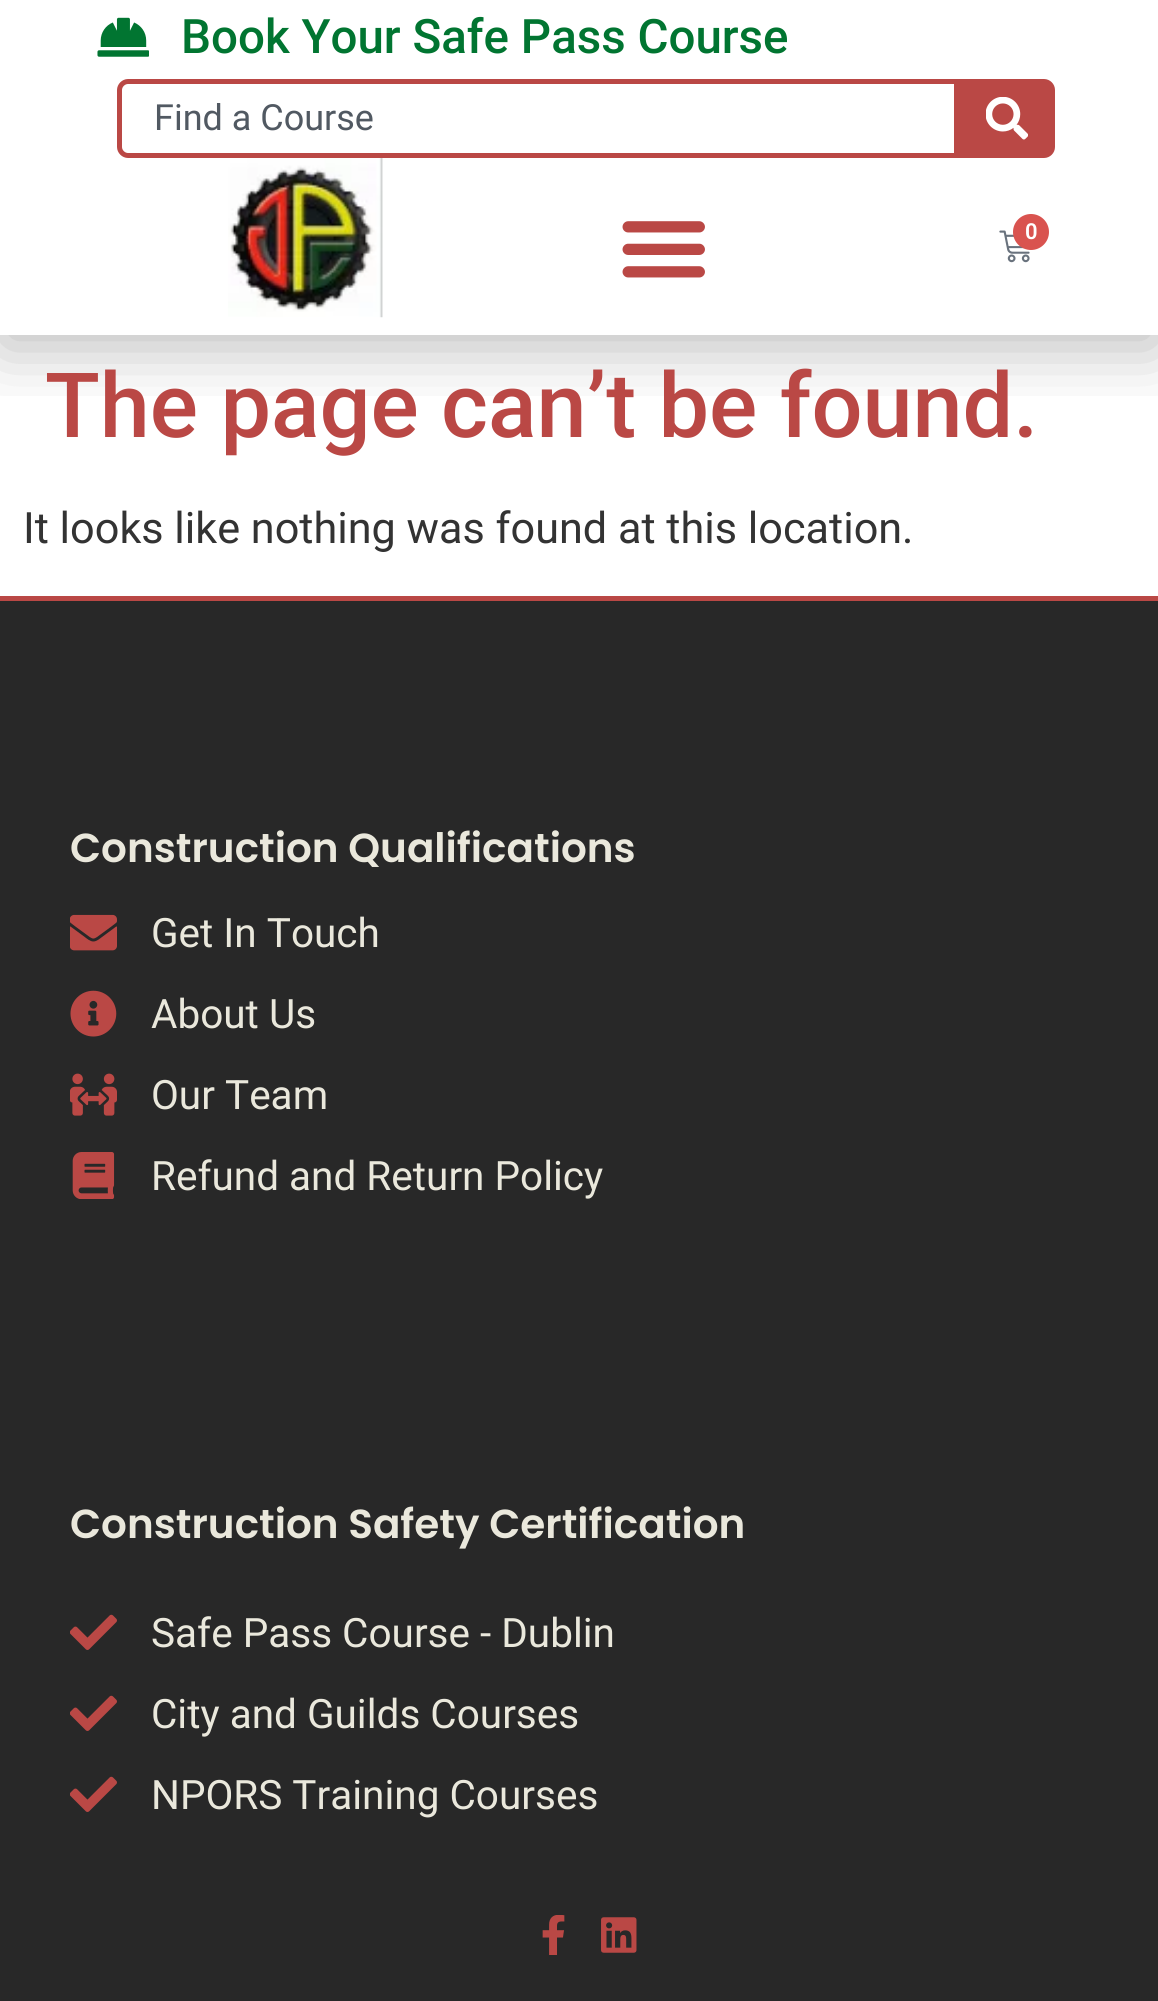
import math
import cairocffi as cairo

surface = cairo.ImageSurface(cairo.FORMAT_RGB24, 1158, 2001)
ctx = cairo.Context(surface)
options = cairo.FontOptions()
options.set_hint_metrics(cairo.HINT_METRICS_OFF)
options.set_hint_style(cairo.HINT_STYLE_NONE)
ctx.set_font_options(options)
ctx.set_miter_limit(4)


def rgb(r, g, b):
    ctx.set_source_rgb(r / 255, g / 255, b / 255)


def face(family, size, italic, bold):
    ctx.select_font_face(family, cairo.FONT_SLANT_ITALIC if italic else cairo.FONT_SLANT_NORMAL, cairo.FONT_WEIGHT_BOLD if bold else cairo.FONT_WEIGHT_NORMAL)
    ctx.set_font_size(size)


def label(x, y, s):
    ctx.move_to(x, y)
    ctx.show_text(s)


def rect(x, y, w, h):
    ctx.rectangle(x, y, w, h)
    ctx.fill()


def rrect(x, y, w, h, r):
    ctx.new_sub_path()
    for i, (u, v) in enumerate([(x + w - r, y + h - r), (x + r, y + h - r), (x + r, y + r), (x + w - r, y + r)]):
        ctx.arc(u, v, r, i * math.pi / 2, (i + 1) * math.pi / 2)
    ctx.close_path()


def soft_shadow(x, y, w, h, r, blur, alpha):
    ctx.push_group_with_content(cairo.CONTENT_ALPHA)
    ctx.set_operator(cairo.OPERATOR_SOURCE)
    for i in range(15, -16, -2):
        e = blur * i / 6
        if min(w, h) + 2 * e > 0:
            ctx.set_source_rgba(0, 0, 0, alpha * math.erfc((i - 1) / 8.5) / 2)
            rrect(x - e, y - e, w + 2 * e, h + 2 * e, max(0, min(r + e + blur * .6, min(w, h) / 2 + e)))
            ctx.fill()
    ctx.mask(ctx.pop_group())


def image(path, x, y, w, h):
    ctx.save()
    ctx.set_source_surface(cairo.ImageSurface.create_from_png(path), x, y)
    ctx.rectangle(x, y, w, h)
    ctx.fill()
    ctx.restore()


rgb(255, 255, 255)
ctx.paint()
ctx.save()
ctx.rectangle(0, 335, 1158, 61)
ctx.clip()
rgb(0, 0, 0)
soft_shadow(0, 11, 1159, 336, 0, 34, 0.27)
ctx.restore()
image('image0.png', 97, 17, 52, 40)
face('Roboto Medium', 47.5, 0, 0)
rgb(1, 117, 49)
label(181, 53, 'Book Your Safe Pass Course')
ctx.new_path()
ctx.move_to(128, 81.5)
ctx.line_to(956.5, 81.5)
ctx.line_to(956.5, 155.5)
ctx.line_to(128, 155.5)
ctx.curve_to(123.5, 155.5, 119.5, 151.5, 119.5, 147)
ctx.line_to(119.5, 90)
ctx.curve_to(119.5, 85.5, 123.5, 81.5, 128, 81.5)
ctx.close_path()
rgb(186, 72, 69)
ctx.set_line_width(5)
ctx.stroke()
face('Roboto', 36, 0, 0)
rgb(81, 89, 98)
label(154, 130, 'Find a Course')
rgb(186, 72, 69)
ctx.new_path()
ctx.move_to(959, 79)
ctx.line_to(1044, 79)
ctx.curve_to(1050, 79, 1055, 84, 1055, 90)
ctx.line_to(1055, 147)
ctx.curve_to(1055, 153, 1050, 158, 1044, 158)
ctx.line_to(959, 158)
ctx.close_path()
ctx.fill()
image('image1.png', 986, 97, 42, 43)
image('image2.png', 228, 158, 155, 160)
image('image3.png', 622, 221, 83, 57)
image('image4.png', 999, 230, 31, 33)
rgb(217, 83, 79)
ctx.arc(1031, 232, 18, 0, 2 * math.pi)
ctx.fill()
face('Roboto SemiBold', 22, 0, 0)
rgb(255, 255, 255)
label(1025, 239, '0')
face('Roboto Medium', 90, 0, 0)
rgb(186, 72, 69)
label(45, 437, 'The page can’t be found.')
face('Roboto', 43.2, 0, 0)
rgb(51, 51, 51)
label(23, 543, 'It looks like nothing was found at this location.')
rgb(40, 40, 40)
rect(0, 601, 1158, 1400)
rgb(186, 72, 69)
rect(0, 596, 1158, 5)
face('Poppins SemiBold', 40.5, 0, 0)
rgb(234, 232, 220)
label(70, 862, 'Construction Qualifications')
image('image5.png', 70, 914, 47, 37)
face('Roboto', 40.5, 0, 0)
label(151, 947, 'Get In Touch')
image('image6.png', 70, 990, 47, 47)
label(151, 1028, 'About Us')
image('image7.png', 70, 1073, 47, 43)
label(151, 1109, 'Our Team')
image('image8.png', 72, 1152, 43, 47)
label(151, 1190, 'Refund and Return Policy')
face('Poppins SemiBold', 40.5, 0, 0)
label(70, 1538, 'Construction Safety Certification')
image('image9.png', 70, 1614, 47, 36)
face('Roboto', 40.5, 0, 0)
label(151, 1647, 'Safe Pass Course - Dublin')
image('image9.png', 70, 1695, 47, 36)
label(151, 1728, 'City and Guilds Courses')
image('image9.png', 70, 1776, 47, 36)
label(151, 1809, 'NPORS Training Courses')
image('image10.png', 542, 1915, 23, 40)
image('image11.png', 601, 1917, 36, 36)
surface.write_to_png('render.png')
